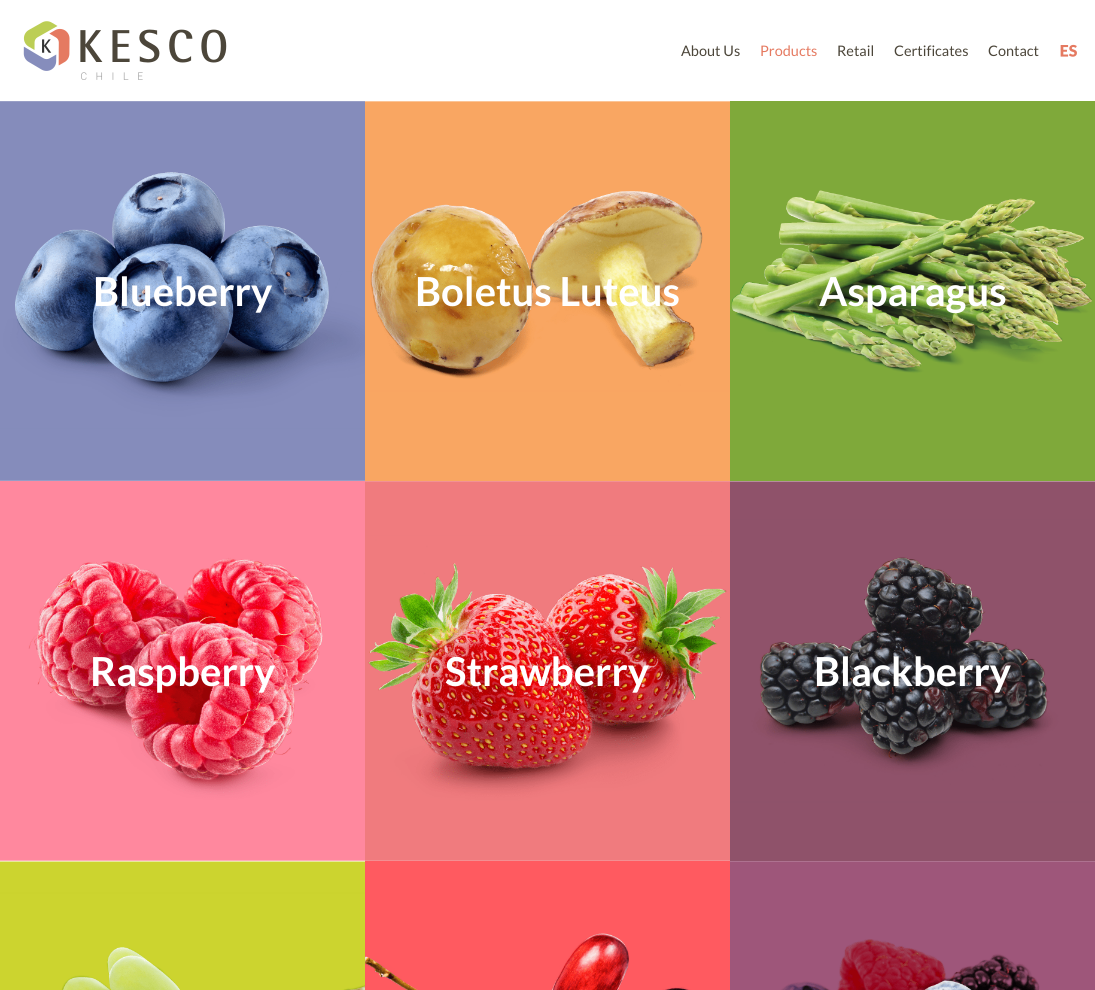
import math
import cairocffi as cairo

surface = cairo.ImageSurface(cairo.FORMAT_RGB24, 1095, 990)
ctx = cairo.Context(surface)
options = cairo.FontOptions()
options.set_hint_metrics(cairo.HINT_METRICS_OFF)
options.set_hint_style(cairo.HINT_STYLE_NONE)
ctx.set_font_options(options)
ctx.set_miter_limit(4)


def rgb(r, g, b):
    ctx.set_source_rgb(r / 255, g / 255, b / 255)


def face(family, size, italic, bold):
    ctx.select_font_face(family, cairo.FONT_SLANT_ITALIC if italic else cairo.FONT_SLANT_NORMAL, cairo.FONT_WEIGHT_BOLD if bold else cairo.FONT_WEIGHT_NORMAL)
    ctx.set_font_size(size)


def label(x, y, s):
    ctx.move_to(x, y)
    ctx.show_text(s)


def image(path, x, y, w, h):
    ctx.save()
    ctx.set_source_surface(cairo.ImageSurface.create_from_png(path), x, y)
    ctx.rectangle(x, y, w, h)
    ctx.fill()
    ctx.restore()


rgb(255, 255, 255)
ctx.paint()
image('image0.png', 23, 21, 204, 59)
face('Lato', 14.5, 0, 0)
rgb(76, 70, 58)
label(681, 56, 'About Us')
rgb(229, 122, 97)
label(760, 56, 'Products')
rgb(76, 70, 58)
label(837, 56, 'Retail')
label(894, 56, 'Certificates')
label(988, 56, 'Contact')
image('image1.png', 1060, 44, 17, 13)
image('image2.png', 0, 101, 365, 380)
face('Lato', 40, 0, 1)
rgb(255, 255, 255)
label(93, 306, 'Blueberry')
image('image3.png', 365, 101, 365, 380)
label(415, 306, 'Boletus Luteus')
image('image4.png', 730, 101, 365, 380)
label(819, 306, 'Asparagus')
image('image5.png', 0, 481, 365, 380)
label(90, 686, 'Raspberry')
image('image6.png', 365, 481, 365, 380)
label(445, 686, 'Strawberry')
image('image7.png', 730, 481, 365, 380)
label(814, 686, 'Blackberry')
image('image8.png', 0, 861, 365, 129)
image('image9.png', 365, 861, 365, 129)
image('image10.png', 730, 861, 365, 129)
surface.write_to_png('render.png')
